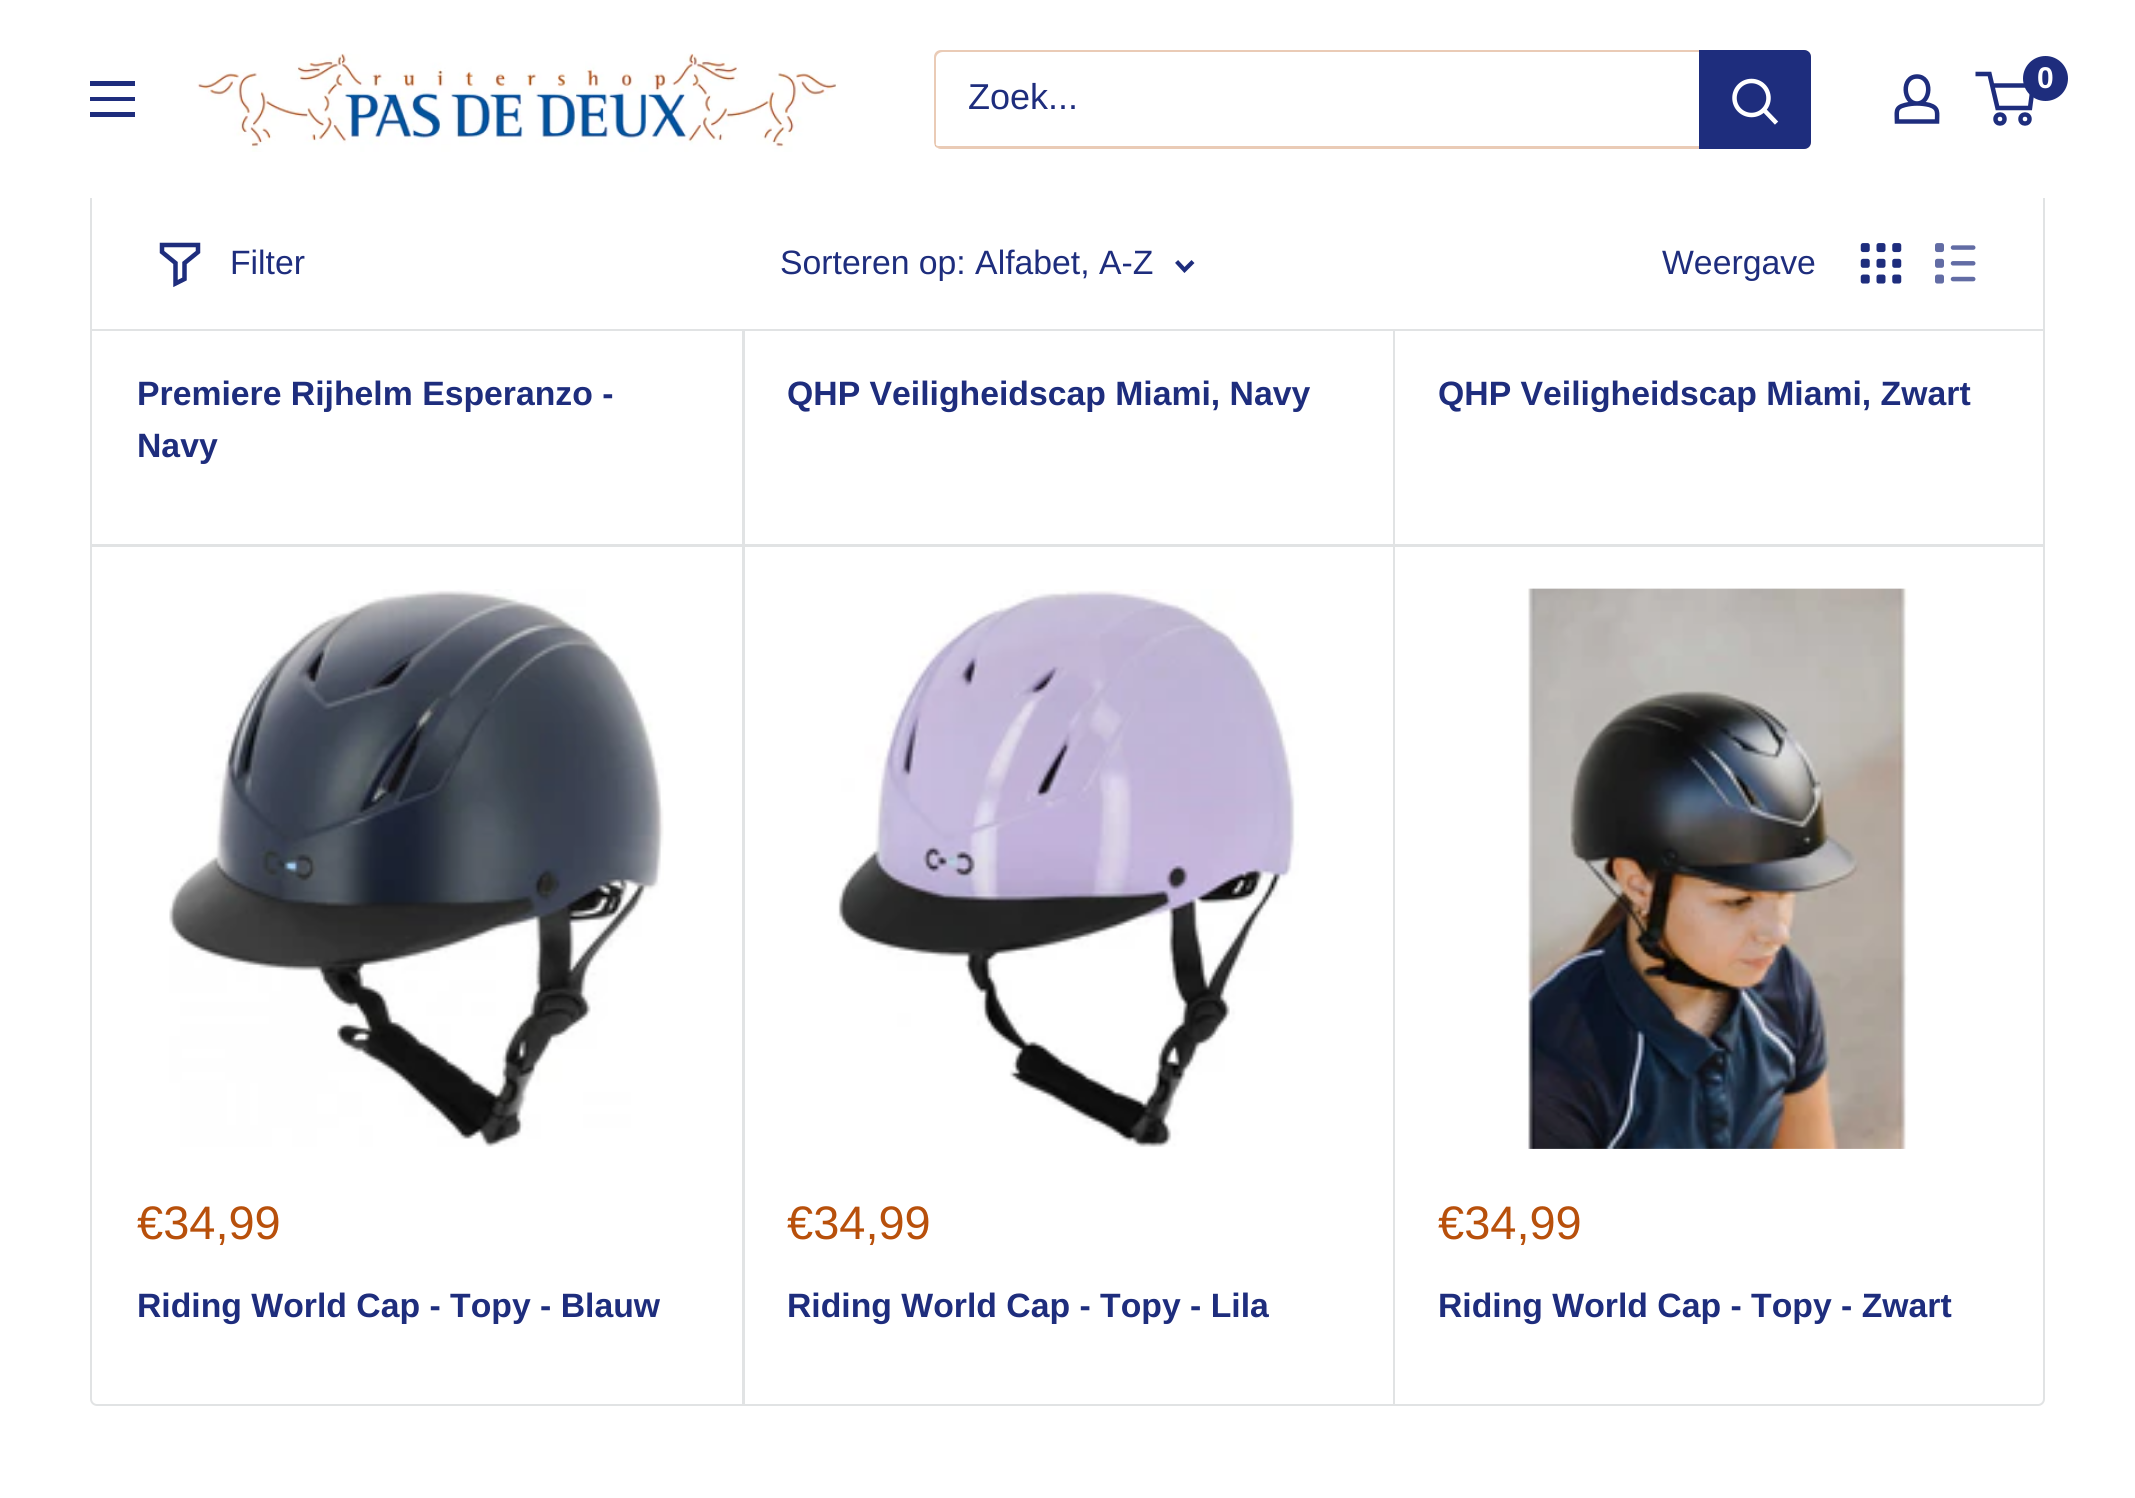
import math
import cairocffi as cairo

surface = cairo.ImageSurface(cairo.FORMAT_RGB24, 2135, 1498)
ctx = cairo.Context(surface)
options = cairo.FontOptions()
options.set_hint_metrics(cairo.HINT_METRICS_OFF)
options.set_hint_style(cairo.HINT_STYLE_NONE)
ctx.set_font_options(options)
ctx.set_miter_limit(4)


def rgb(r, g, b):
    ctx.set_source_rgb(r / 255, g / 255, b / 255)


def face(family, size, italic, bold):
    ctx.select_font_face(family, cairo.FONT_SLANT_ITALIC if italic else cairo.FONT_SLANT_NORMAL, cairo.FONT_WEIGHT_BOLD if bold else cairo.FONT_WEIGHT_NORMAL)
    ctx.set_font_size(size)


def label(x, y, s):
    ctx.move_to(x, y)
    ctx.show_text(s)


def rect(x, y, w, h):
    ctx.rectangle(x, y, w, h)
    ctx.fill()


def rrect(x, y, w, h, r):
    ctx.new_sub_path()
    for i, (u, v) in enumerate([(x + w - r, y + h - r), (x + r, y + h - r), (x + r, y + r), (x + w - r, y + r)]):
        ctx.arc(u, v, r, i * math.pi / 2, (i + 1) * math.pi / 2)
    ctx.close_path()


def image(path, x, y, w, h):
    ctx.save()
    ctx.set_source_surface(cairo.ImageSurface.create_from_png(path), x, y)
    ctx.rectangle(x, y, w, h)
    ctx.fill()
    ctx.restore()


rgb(255, 255, 255)
ctx.paint()
rrect(91, -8, 1953, 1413, 6)
rgb(225, 227, 228)
ctx.stroke()
face('Liberation Sans', 33.75, 0, 1)
rgb(30, 45, 125)
label(137, 405, 'Premiere Rijhelm Esperanzo -')
label(137, 457, 'Navy')
rgb(225, 227, 228)
ctx.new_path()
ctx.move_to(92, -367)
ctx.line_to(92, 547)
ctx.line_to(743, 547)
ctx.line_to(743, -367)
ctx.line_to(742, -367)
ctx.line_to(742, 544)
ctx.line_to(92, 544)
ctx.close_path()
ctx.fill()
ctx.new_path()
ctx.move_to(95, 544)
ctx.line_to(95, 545)
ctx.line_to(745, 545)
ctx.line_to(745, -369)
ctx.line_to(742, -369)
ctx.line_to(742, 544)
ctx.close_path()
ctx.fill()
ctx.new_path()
ctx.move_to(743, 544)
ctx.line_to(743, 547)
ctx.line_to(1393, 547)
ctx.line_to(1393, -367)
ctx.line_to(1393, 544)
ctx.close_path()
ctx.fill()
rgb(30, 45, 125)
label(787, 405, 'QHP Veiligheidscap Miami, Navy')
rgb(225, 227, 228)
ctx.new_path()
ctx.move_to(745, 544)
ctx.line_to(745, 545)
ctx.line_to(1395, 545)
ctx.line_to(1395, -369)
ctx.line_to(1393, -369)
ctx.line_to(1393, 544)
ctx.close_path()
ctx.fill()
rgb(255, 255, 255)
rect(90, 0, 1955, 198)
image('image0.png', 197, 53, 641, 99)
ctx.new_path()
ctx.move_to(1917, 103.5)
ctx.curve_to(1921, 103.5, 1925.5, 104, 1929.5, 105)
ctx.curve_to(1939, 108, 1937, 113, 1937, 121.5)
ctx.line_to(1897, 121.5)
ctx.curve_to(1897, 112.5, 1894.5, 107.5, 1905, 105)
ctx.curve_to(1909, 104, 1913, 103.5, 1917, 103.5)
ctx.close_path()
ctx.move_to(1917, 103.5)
ctx.curve_to(1903, 103.5, 1901, 76.5, 1917, 76.5)
ctx.curve_to(1933, 76.5, 1931, 103.5, 1917, 103.5)
ctx.close_path()
rgb(30, 45, 125)
ctx.set_line_width(4.5)
ctx.stroke()
ctx.arc(2000, 119, 4.5, 0, 2 * math.pi)
ctx.stroke()
ctx.arc(2025, 119, 4.5, 0, 2 * math.pi)
ctx.stroke()
ctx.new_path()
ctx.move_to(1992, 85.5)
ctx.line_to(2033, 85.5)
ctx.line_to(2030, 108)
ctx.line_to(1997.5, 108)
ctx.line_to(1989.5, 74)
ctx.line_to(1975.5, 74)
ctx.stroke()
ctx.arc(2045.5, 78.5, 22.5, 0, 2 * math.pi)
ctx.fill()
face('Liberation Sans', 30, 0, 1)
rgb(255, 255, 255)
label(2037, 88, '0')
rgb(30, 45, 125)
ctx.set_fill_rule(cairo.FILL_RULE_EVEN_ODD)
ctx.new_path()
ctx.move_to(90, 112)
ctx.line_to(135, 112)
ctx.line_to(135, 117)
ctx.line_to(90, 117)
ctx.close_path()
ctx.move_to(90, 81)
ctx.line_to(135, 81)
ctx.line_to(135, 86)
ctx.line_to(90, 86)
ctx.close_path()
ctx.move_to(90, 97)
ctx.line_to(135, 97)
ctx.line_to(135, 101)
ctx.line_to(90, 101)
ctx.close_path()
ctx.fill()
rgb(234, 203, 182)
ctx.set_fill_rule(cairo.FILL_RULE_WINDING)
ctx.new_path()
ctx.move_to(935, 145)
ctx.curve_to(936, 147, 938, 149, 941, 149)
ctx.line_to(1804, 149)
ctx.curve_to(1808, 149, 1811, 146, 1811, 142)
ctx.line_to(1811, 57)
ctx.curve_to(1811, 55, 1810, 53, 1809, 52)
ctx.line_to(1809, 126)
ctx.curve_to(1809, 131, 1812, 146, 1802, 146)
ctx.line_to(938, 146)
ctx.close_path()
ctx.fill()
ctx.set_source_rgba(0.722, 0.314, 0.043, 0.3)
ctx.new_path()
ctx.move_to(943, 52)
ctx.line_to(1807, 52)
ctx.line_to(1809, 53)
ctx.curve_to(1808, 51, 1806, 50, 1804, 50)
ctx.line_to(941, 50)
ctx.curve_to(937, 50, 934, 53, 934, 57)
ctx.line_to(934, 142)
ctx.curve_to(934, 144, 935, 147, 937, 148)
ctx.curve_to(936, 147, 936, 145, 936, 144)
ctx.line_to(936, 58)
ctx.curve_to(936, 55, 939, 52, 943, 52)
ctx.close_path()
ctx.fill()
face('Liberation Sans', 36, 0, 0)
rgb(30, 45, 125)
label(968, 109, 'Zoek...')
ctx.new_path()
ctx.move_to(1699, 50)
ctx.line_to(1804, 50)
ctx.curve_to(1808, 50, 1811, 53, 1811, 57)
ctx.line_to(1811, 142)
ctx.curve_to(1811, 146, 1808, 149, 1804, 149)
ctx.line_to(1699, 149)
ctx.close_path()
ctx.fill()
ctx.new_path()
ctx.move_to(1775, 121.5)
ctx.line_to(1764, 110)
rgb(255, 255, 255)
ctx.set_line_cap(cairo.LINE_CAP_SQUARE)
ctx.stroke()
ctx.arc(1751.5, 98, 17, 0, 2 * math.pi)
ctx.set_line_cap(cairo.LINE_CAP_BUTT)
ctx.stroke()
rgb(225, 227, 228)
ctx.new_path()
ctx.move_to(92, 200)
ctx.line_to(92, 331)
ctx.line_to(2043, 331)
ctx.line_to(2043, 328)
ctx.line_to(92, 328)
ctx.close_path()
ctx.fill()
rgb(255, 255, 255)
rect(92, 198, 1951, 131)
ctx.new_path()
ctx.move_to(198, 252)
ctx.line_to(184.5, 263)
ctx.line_to(184.5, 279)
ctx.line_to(175.5, 283.5)
ctx.line_to(175.5, 263)
ctx.line_to(162, 252)
ctx.line_to(162, 245)
ctx.line_to(198, 245)
ctx.close_path()
rgb(30, 45, 125)
ctx.set_line_cap(cairo.LINE_CAP_SQUARE)
ctx.stroke()
face('Liberation Sans', 33.75, 0, 0)
label(230, 274, 'Filter')
label(780, 274, 'Sorteren op: Alfabet, A-Z')
ctx.new_path()
ctx.move_to(1191.5, 263)
ctx.line_to(1184.5, 270)
ctx.line_to(1178, 263)
ctx.set_line_width(4.2)
ctx.stroke()
label(1662, 274, 'Weergave')
image('image1.png', 1860, 243, 42, 41)
image('image2.png', 1935, 243, 41, 41)
face('Liberation Sans', 33.75, 0, 1)
label(1438, 405, 'QHP Veiligheidscap Miami, Zwart')
rgb(225, 227, 228)
rect(1393, 544, 650, 3)
image('image3.png', 169, 589, 495, 558)
rect(742, 545, 3, 859)
face('Liberation Sans', 47, 0, 0)
rgb(184, 80, 11)
label(137, 1239, '€34,99')
face('Liberation Sans', 33.75, 0, 1)
rgb(30, 45, 125)
label(137, 1317, 'Riding World Cap - Topy - Blauw')
image('image4.png', 837, 589, 462, 558)
rgb(225, 227, 228)
rect(1393, 545, 2, 859)
face('Liberation Sans', 47, 0, 0)
rgb(184, 80, 11)
label(787, 1239, '€34,99')
face('Liberation Sans', 33.75, 0, 1)
rgb(30, 45, 125)
label(787, 1317, 'Riding World Cap - Topy - Lila')
image('image5.png', 1526, 588, 382, 561)
face('Liberation Sans', 47, 0, 0)
rgb(184, 80, 11)
label(1438, 1239, '€34,99')
face('Liberation Sans', 33.75, 0, 1)
rgb(30, 45, 125)
label(1438, 1317, 'Riding World Cap - Topy - Zwart')
surface.write_to_png('render.png')
